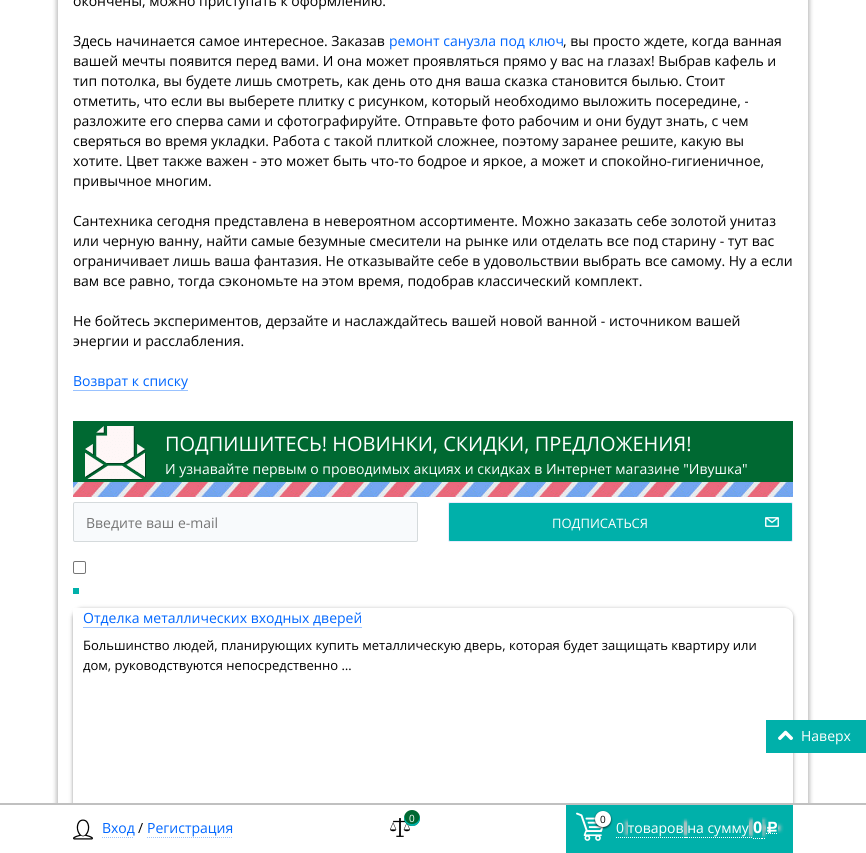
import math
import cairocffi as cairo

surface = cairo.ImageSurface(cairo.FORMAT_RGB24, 866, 853)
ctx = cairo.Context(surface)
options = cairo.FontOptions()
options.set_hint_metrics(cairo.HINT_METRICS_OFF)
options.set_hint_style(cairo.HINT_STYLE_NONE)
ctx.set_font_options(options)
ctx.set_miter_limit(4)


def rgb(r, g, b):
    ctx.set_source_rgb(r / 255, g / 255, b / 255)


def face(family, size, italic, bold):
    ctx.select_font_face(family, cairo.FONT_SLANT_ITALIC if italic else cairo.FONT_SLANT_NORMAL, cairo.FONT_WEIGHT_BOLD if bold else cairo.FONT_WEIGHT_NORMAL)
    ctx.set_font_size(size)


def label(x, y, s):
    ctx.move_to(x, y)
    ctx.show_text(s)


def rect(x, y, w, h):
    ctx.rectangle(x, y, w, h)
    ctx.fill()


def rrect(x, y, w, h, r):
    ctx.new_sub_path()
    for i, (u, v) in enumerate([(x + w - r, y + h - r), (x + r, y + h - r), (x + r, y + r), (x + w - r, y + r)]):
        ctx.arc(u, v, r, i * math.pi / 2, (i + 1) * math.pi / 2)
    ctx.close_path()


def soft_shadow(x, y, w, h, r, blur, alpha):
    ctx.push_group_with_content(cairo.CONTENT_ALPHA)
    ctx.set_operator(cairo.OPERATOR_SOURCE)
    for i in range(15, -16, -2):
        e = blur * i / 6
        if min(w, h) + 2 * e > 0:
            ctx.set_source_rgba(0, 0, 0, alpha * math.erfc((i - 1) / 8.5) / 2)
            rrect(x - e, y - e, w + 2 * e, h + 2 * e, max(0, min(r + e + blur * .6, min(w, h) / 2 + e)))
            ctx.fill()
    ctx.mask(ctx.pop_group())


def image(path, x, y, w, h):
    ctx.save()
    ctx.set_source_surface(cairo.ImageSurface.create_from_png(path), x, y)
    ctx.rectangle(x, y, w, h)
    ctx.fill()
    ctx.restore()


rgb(255, 255, 255)
ctx.paint()
ctx.save()
ctx.rectangle(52, 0, 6, 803)
ctx.clip()
rgb(195, 195, 195)
soft_shadow(56, -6, 742, 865, 0, 2, 1)
ctx.restore()
ctx.save()
ctx.rectangle(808, 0, 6, 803)
ctx.clip()
rgb(195, 195, 195)
soft_shadow(68, -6, 742, 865, 0, 2, 1)
ctx.restore()
face('Open Sans', 14, 0, 0)
rgb(0, 0, 0)
label(73, 6, 'окончены, можно приступать к оформлению.')
label(73, 46, 'Здесь начинается самое интересное. Заказав')
rgb(0, 102, 255)
label(389, 46, 'ремонт санузла под ключ')
rgb(0, 0, 0)
label(563, 46, ', вы просто ждете, когда ванная')
label(73, 66, 'вашей мечты появится перед вами. И она может проявляться прямо у вас на глазах! Выбрав кафель и')
label(73, 86, 'тип потолка, вы будете лишь смотреть, как день ото дня ваша сказка становится былью. Стоит')
label(73, 106, 'отметить, что если вы выберете плитку с рисунком, который необходимо выложить посередине, -')
label(73, 126, 'разложите его сперва сами и сфотографируйте. Отправьте фото рабочим и они будут знать, с чем')
label(73, 146, 'сверяться во время укладки. Работа с такой плиткой сложнее, поэтому заранее решите, какую вы')
label(73, 166, 'хотите. Цвет также важен - это может быть что-то бодрое и яркое, а может и спокойно-гигиеничное,')
label(73, 186, 'привычное многим.')
label(73, 226, 'Сантехника сегодня представлена в невероятном ассортименте. Можно заказать себе золотой унитаз')
label(73, 246, 'или черную ванну, найти самые безумные смесители на рынке или отделать все под старину - тут вас')
label(73, 266, 'ограничивает лишь ваша фантазия. Не отказывайте себе в удовольствии выбрать все самому. Ну а если')
label(73, 286, 'вам все равно, тогда сэкономьте на этом время, подобрав классический комплект.')
label(73, 326, 'Не бойтесь экспериментов, дерзайте и наслаждайтесь вашей новой ванной - источником вашей')
label(73, 346, 'энергии и расслабления.')
rgb(0, 102, 255)
label(73, 386, 'Возврат к списку')
rgb(153, 194, 255)
rect(73, 390, 115, 1)
rgb(0, 105, 50)
rect(73, 421, 720, 61)
image('image0.png', 73, 426, 720, 71)
face('Open Sans', 20, 0, 0)
rgb(255, 255, 255)
label(165, 451, 'ПОДПИШИТЕСЬ! НОВИНКИ, СКИДКИ, ПРЕДЛОЖЕНИЯ!')
face('Open Sans', 14, 0, 0)
label(165, 474, 'И узнавайте первым о проводимых акциях и скидках в Интернет магазине "Ивушка"')
rgb(248, 250, 252)
rrect(73.5, 502.5, 344, 39, 1.5)
ctx.fill_preserve()
rgb(213, 218, 220)
ctx.set_line_width(1)
ctx.stroke()
rgb(117, 117, 117)
label(86, 528, 'Введите ваш e-mail')
rrect(73.5, 561.5, 12, 12, 1.5)
rgb(118, 118, 118)
ctx.stroke()
rgb(0, 176, 170)
rrect(448.5, 502.5, 344, 39, 1.5)
ctx.fill_preserve()
rgb(233, 236, 255)
ctx.stroke()
face('Open Sans', 13, 0, 0)
rgb(255, 255, 255)
label(552, 528, 'ПОДПИСАТЬСЯ')
rgb(0, 176, 170)
ctx.new_path()
ctx.move_to(752, 503)
ctx.line_to(790, 503)
ctx.curve_to(791, 503, 792, 504, 792, 505)
ctx.line_to(792, 539)
ctx.curve_to(792, 540, 791, 541, 790, 541)
ctx.line_to(752, 541)
ctx.close_path()
ctx.fill()
image('image1.png', 765, 517, 14, 10)
ctx.save()
ctx.set_fill_rule(cairo.FILL_RULE_EVEN_ODD)
ctx.new_path()
ctx.move_to(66, 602)
ctx.line_to(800, 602)
ctx.line_to(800, 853)
ctx.line_to(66, 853)
ctx.close_path()
ctx.move_to(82, 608)
ctx.line_to(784, 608)
ctx.curve_to(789, 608, 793, 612, 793, 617)
ctx.line_to(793, 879)
ctx.curve_to(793, 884, 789, 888, 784, 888)
ctx.line_to(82, 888)
ctx.curve_to(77, 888, 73, 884, 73, 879)
ctx.line_to(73, 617)
ctx.curve_to(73, 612, 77, 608, 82, 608)
ctx.close_path()
ctx.clip()
rgb(0, 0, 0)
soft_shadow(73, 609, 720, 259, 9, 2, 0.4)
ctx.restore()
rect(73, 588, 6, 6)
rgb(255, 255, 255)
rect(73, 608, 8, 8)
face('Open Sans', 14, 0, 0)
rgb(0, 102, 255)
label(83, 623, 'Отделка металлических входных дверей')
rgb(153, 194, 255)
rect(83, 627, 279, 1)
face('Open Sans', 13, 0, 0)
rgb(0, 0, 0)
label(83, 650, 'Большинство людей, планирующих купить металлическую дверь, которая будет защищать квартиру или')
label(83, 670, 'дом, руководствуются непосредственно …')
rgb(0, 176, 170)
rect(766, 720, 100, 33)
image('image2.png', 778, 730, 15, 10)
face('Open Sans', 14, 0, 0)
rgb(255, 255, 255)
label(801, 741, 'Наверх')
rgb(192, 192, 192)
rect(0, 803, 866, 2)
rgb(255, 255, 255)
rect(53, 805, 760, 48)
image('image3.png', 73, 819, 20, 21)
rgb(0, 102, 255)
label(102, 833, 'Вход')
ctx.new_path()
ctx.move_to(102, 837.5)
ctx.line_to(134, 837.5)
rgb(153, 194, 255)
ctx.set_dash([1, 1])
ctx.stroke()
rgb(0, 0, 0)
label(138, 833, '/')
rgb(0, 102, 255)
label(147, 833, 'Регистрация')
ctx.new_path()
ctx.move_to(147, 837.5)
ctx.line_to(233, 837.5)
rgb(153, 194, 255)
ctx.stroke()
image('image4.png', 390, 818, 20, 19)
rgb(0, 105, 50)
ctx.arc(412, 818, 8, 0, 2 * math.pi)
ctx.fill()
rgb(0, 176, 170)
ctx.new_path()
ctx.move_to(419.5, 815)
ctx.curve_to(420.5, 827, 403.5, 827, 404.5, 815)
ctx.curve_to(401, 824.5, 415.5, 831, 419.5, 821)
ctx.curve_to(420, 819, 420, 817, 419.5, 815)
ctx.close_path()
ctx.fill()
face('Open Sans', 10, 0, 0)
rgb(255, 255, 255)
label(409, 822, '0')
rgb(0, 176, 170)
rect(566, 805, 227, 48)
image('image5.png', 576, 812, 28, 29)
rgb(0, 0, 0)
soft_shadow(595, 812, 16, 16, 8, 1, 0.79)
rgb(255, 255, 255)
ctx.arc(603, 819, 8, 0, 2 * math.pi)
ctx.fill()
rgb(0, 0, 0)
label(600, 823, '0')
ctx.new_path()
ctx.move_to(616, 837.5)
ctx.line_to(624, 837.5)
rgb(255, 255, 255)
ctx.stroke()
ctx.new_path()
ctx.move_to(624, 837.5)
ctx.line_to(625, 837.5)
ctx.move_to(626, 837.5)
ctx.line_to(627, 837.5)
ctx.set_dash([])
ctx.stroke()
ctx.save()
ctx.rectangle(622, 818, 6, 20)
ctx.clip()
rgb(195, 195, 195)
soft_shadow(626, 822, 48, 12, 0, 2, 1)
ctx.restore()
ctx.save()
ctx.rectangle(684, 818, 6, 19)
ctx.clip()
rgb(195, 195, 195)
soft_shadow(638, 822, 48, 12, 0, 2, 1)
ctx.restore()
ctx.new_path()
ctx.move_to(628, 837.5)
ctx.line_to(684, 837.5)
ctx.set_dash([1, 1])
ctx.stroke()
rect(684, 837, 3, 1)
ctx.save()
ctx.rectangle(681, 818, 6, 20)
ctx.clip()
rgb(195, 195, 195)
soft_shadow(685, 822, 54, 12, 0, 2, 1)
ctx.restore()
ctx.save()
ctx.rectangle(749, 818, 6, 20)
ctx.clip()
rgb(195, 195, 195)
soft_shadow(697, 822, 54, 12, 0, 2, 1)
ctx.restore()
ctx.new_path()
ctx.move_to(687, 837.5)
ctx.line_to(749, 837.5)
ctx.stroke()
ctx.new_path()
ctx.move_to(749, 837.5)
ctx.line_to(750, 837.5)
ctx.move_to(751, 837.5)
ctx.line_to(752, 837.5)
ctx.set_dash([])
ctx.stroke()
ctx.save()
ctx.rectangle(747, 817, 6, 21)
ctx.clip()
rgb(195, 195, 195)
soft_shadow(751, 820, 1, 15, 0, 2, 1)
ctx.restore()
face('Open Sans', 14, 0, 0)
label(616, 833, '0 товаров на сумму')
ctx.save()
ctx.rectangle(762, 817, 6, 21)
ctx.clip()
rgb(195, 195, 195)
soft_shadow(763, 820, 1, 15, 0, 2, 1)
ctx.restore()
ctx.new_path()
ctx.move_to(753, 838.5)
ctx.line_to(762, 838.5)
ctx.set_dash([1, 1])
ctx.stroke()
ctx.save()
ctx.rectangle(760, 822, 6, 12)
ctx.clip()
rgb(195, 195, 195)
soft_shadow(764, 826, 4, 4, 0, 2, 1)
ctx.restore()
face('Open Sans', 16, 0, 1)
label(753, 833, '0')
ctx.new_path()
ctx.move_to(762, 838.5)
ctx.line_to(763, 838.5)
ctx.move_to(764, 838.5)
ctx.line_to(765, 838.5)
ctx.set_dash([])
ctx.stroke()
ctx.save()
ctx.rectangle(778, 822, 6, 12)
ctx.clip()
rgb(195, 195, 195)
soft_shadow(776, 826, 4, 4, 0, 2, 1)
ctx.restore()
face('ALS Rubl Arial', 16, 0, 1)
label(766, 833, 'Р')
ctx.new_path()
ctx.move_to(766, 833.5)
ctx.line_to(778, 833.5)
ctx.set_dash([1, 1])
ctx.stroke()
surface.write_to_png('render.png')
